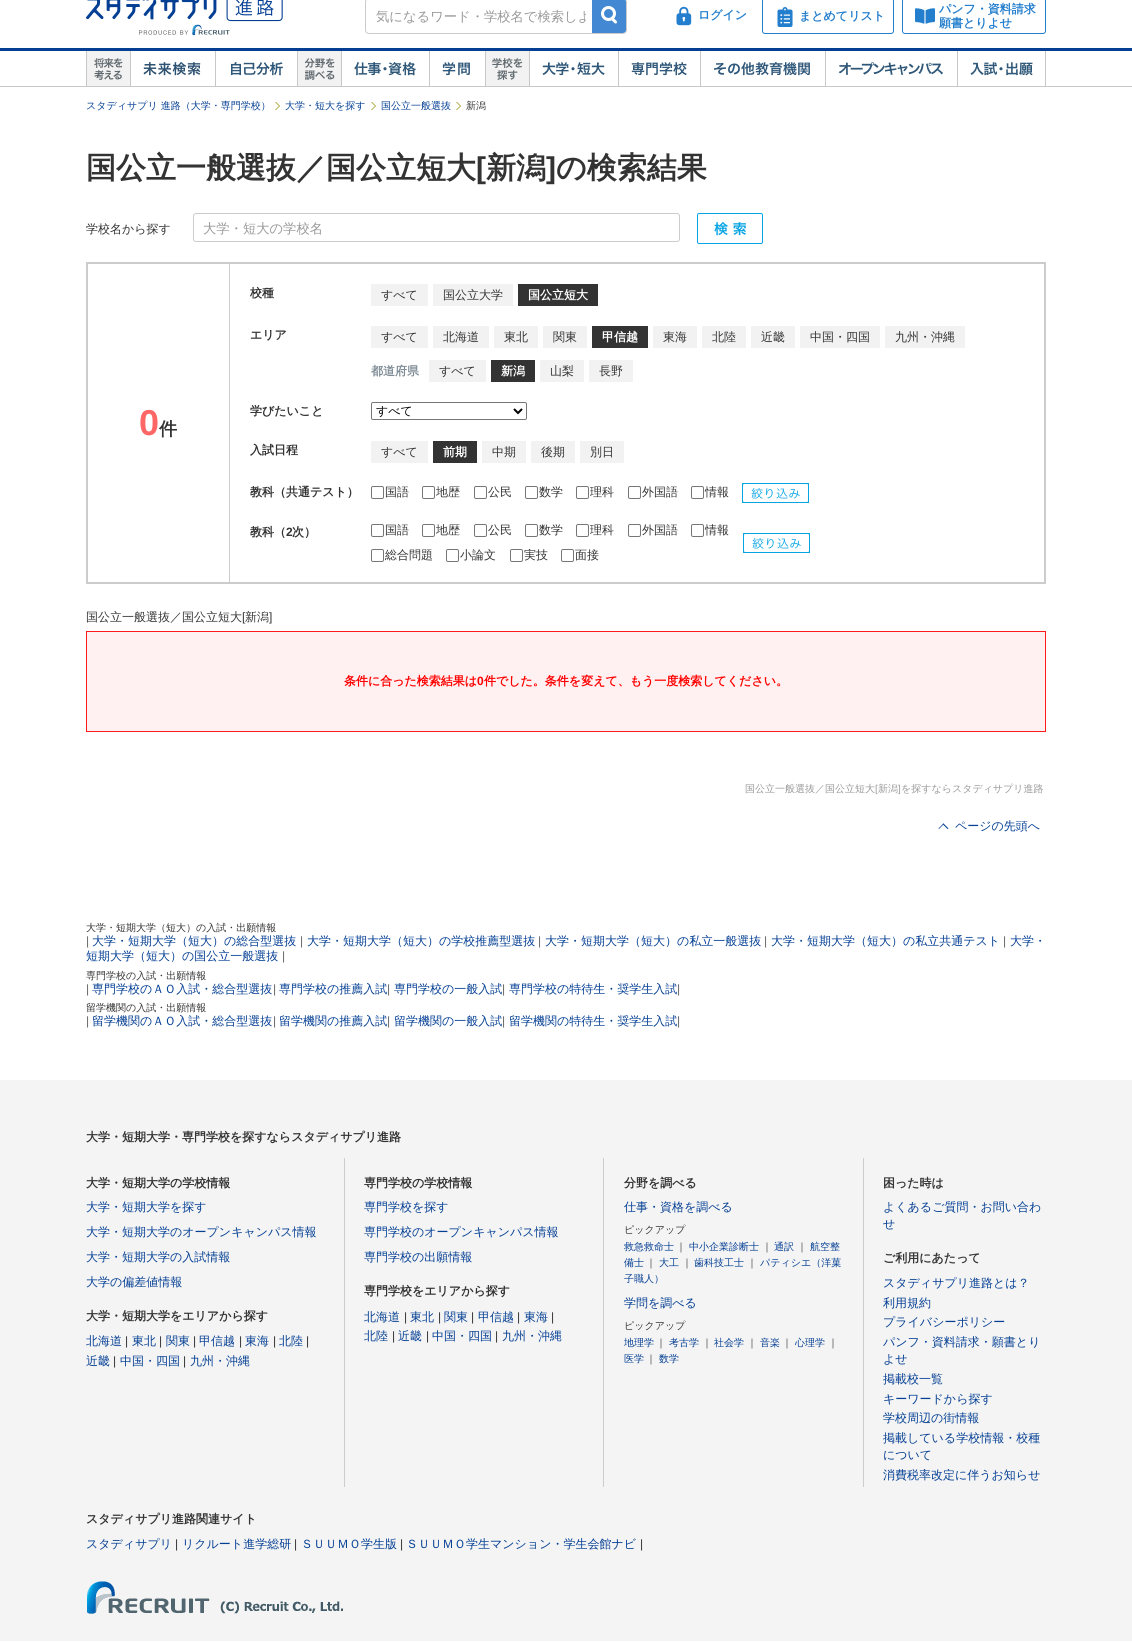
import math
import cairocffi as cairo

surface = cairo.ImageSurface(cairo.FORMAT_RGB24, 1132, 1642)
ctx = cairo.Context(surface)
options = cairo.FontOptions()
options.set_hint_metrics(cairo.HINT_METRICS_OFF)
options.set_hint_style(cairo.HINT_STYLE_NONE)
ctx.set_font_options(options)
ctx.set_miter_limit(4)


def rgb(r, g, b):
    ctx.set_source_rgb(r / 255, g / 255, b / 255)


def face(family, size, italic, bold):
    ctx.select_font_face(family, cairo.FONT_SLANT_ITALIC if italic else cairo.FONT_SLANT_NORMAL, cairo.FONT_WEIGHT_BOLD if bold else cairo.FONT_WEIGHT_NORMAL)
    ctx.set_font_size(size)


def label(x, y, s):
    ctx.move_to(x, y)
    ctx.show_text(s)


def rect(x, y, w, h):
    ctx.rectangle(x, y, w, h)
    ctx.fill()


def rrect(x, y, w, h, r):
    ctx.new_sub_path()
    for i, (u, v) in enumerate([(x + w - r, y + h - r), (x + r, y + h - r), (x + r, y + r), (x + w - r, y + r)]):
        ctx.arc(u, v, r, i * math.pi / 2, (i + 1) * math.pi / 2)
    ctx.close_path()


def image(path, x, y, w, h):
    ctx.save()
    ctx.set_source_surface(cairo.ImageSurface.create_from_png(path), x, y)
    ctx.rectangle(x, y, w, h)
    ctx.fill()
    ctx.restore()


rgb(255, 255, 255)
ctx.paint()
image('image0.png', 86, 0, 197, 36)
rrect(365.5, -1.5, 261, 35, 3.5)
rgb(203, 203, 203)
ctx.set_line_width(1)
ctx.stroke()
ctx.save()
ctx.rectangle(376, 9, 210, 16)
ctx.clip()
face('WenQuanYi Zen Hei Medium', 13.3, 0, 0)
rgb(153, 153, 153)
label(376, 21, '気になるワード・学校名で検索しよ')
ctx.restore()
image('image1.png', 592, 0, 34, 33)
image('image2.png', 676, 6, 16, 20)
face('WenQuanYi Zen Hei', 12, 0, 1)
rgb(35, 126, 205)
label(698, 19, 'ログイン')
rrect(762.5, -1.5, 131, 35, 2.5)
ctx.stroke()
image('image3.png', 777, 7, 16, 20)
label(799, 20, 'まとめてリスト')
rrect(902.5, -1.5, 143, 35, 2.5)
ctx.stroke()
image('image4.png', 915, 8, 20, 16)
label(939, 13, 'パンフ・資料請求')
label(939, 27, '願書とりよせ')
image('image5.png', 0, 48, 1132, 39)
image('image6.png', 86, 51, 44, 35)
image('image7.png', 130, 51, 71, 35)
image('image8.png', 215, 51, 68, 35)
image('image9.png', 297, 51, 44, 35)
image('image10.png', 341, 51, 75, 35)
image('image11.png', 429, 51, 41, 35)
image('image12.png', 485, 51, 44, 35)
image('image13.png', 529, 51, 76, 35)
image('image14.png', 618, 51, 69, 35)
image('image15.png', 700, 51, 110, 35)
image('image16.png', 825, 51, 118, 35)
image('image17.png', 957, 51, 89, 35)
face('WenQuanYi Zen Hei Medium', 10, 0, 0)
rgb(4, 63, 148)
label(86, 109, 'スタディサプリ 進路（大学・専門学校）')
image('image18.png', 275, 102, 5, 8)
label(285, 109, '大学・短大を探す')
image('image18.png', 371, 102, 5, 8)
label(381, 109, '国公立一般選抜')
image('image18.png', 456, 102, 5, 8)
rgb(51, 51, 51)
label(466, 109, '新潟')
face('WenQuanYi Zen Hei', 30, 0, 1)
label(86, 178, '国公立一般選抜／国公立短大')
face('Liberation Sans', 30, 0, 1)
label(476, 178, '[')
face('WenQuanYi Zen Hei', 30, 0, 1)
label(486, 178, '新潟')
face('Liberation Sans', 30, 0, 1)
label(546, 178, ']')
face('WenQuanYi Zen Hei', 30, 0, 1)
label(556, 178, 'の検索結果')
face('WenQuanYi Zen Hei Medium', 12, 0, 0)
label(86, 233, '学校名から探す')
rrect(193.5, 213.5, 486, 28, 2.5)
rgb(204, 204, 204)
ctx.stroke()
face('WenQuanYi Zen Hei Medium', 13.3, 0, 0)
rgb(153, 153, 153)
label(203, 233, '大学・短大の学校名')
image('image19.png', 697, 213, 66, 31)
ctx.rectangle(87, 263, 958, 320)
rgb(204, 204, 204)
ctx.set_line_width(2)
ctx.stroke()
face('Liberation Sans', 36, 0, 1)
rgb(255, 102, 102)
label(139, 435, '0')
face('WenQuanYi Zen Hei', 18, 0, 1)
rgb(51, 51, 51)
label(159, 435, '件')
rgb(204, 204, 204)
rect(229, 264, 1, 318)
face('WenQuanYi Zen Hei', 12, 0, 1)
rgb(51, 51, 51)
label(250, 297, '校種')
rgb(242, 242, 242)
rect(371, 284, 57, 22)
face('WenQuanYi Zen Hei Medium', 12, 0, 0)
rgb(51, 51, 51)
label(381, 299, 'すべて')
rgb(242, 242, 242)
rect(433, 284, 80, 22)
rgb(51, 51, 51)
label(443, 299, '国公立大学')
rect(518, 284, 80, 22)
face('WenQuanYi Zen Hei', 12, 0, 1)
rgb(255, 255, 255)
label(528, 299, '国公立短大')
rgb(51, 51, 51)
label(250, 339, 'エリア')
rgb(242, 242, 242)
rect(371, 326, 57, 22)
face('WenQuanYi Zen Hei Medium', 12, 0, 0)
rgb(51, 51, 51)
label(381, 341, 'すべて')
rgb(242, 242, 242)
rect(433, 326, 56, 22)
rgb(51, 51, 51)
label(443, 341, '北海道')
rgb(242, 242, 242)
rect(494, 326, 44, 22)
rgb(51, 51, 51)
label(504, 341, '東北')
rgb(242, 242, 242)
rect(543, 326, 44, 22)
rgb(51, 51, 51)
label(553, 341, '関東')
rect(592, 326, 56, 22)
face('WenQuanYi Zen Hei', 12, 0, 1)
rgb(255, 255, 255)
label(602, 341, '甲信越')
rgb(242, 242, 242)
rect(653, 326, 44, 22)
face('WenQuanYi Zen Hei Medium', 12, 0, 0)
rgb(51, 51, 51)
label(663, 341, '東海')
rgb(242, 242, 242)
rect(702, 326, 44, 22)
rgb(51, 51, 51)
label(712, 341, '北陸')
rgb(242, 242, 242)
rect(751, 326, 44, 22)
rgb(51, 51, 51)
label(761, 341, '近畿')
rgb(242, 242, 242)
rect(800, 326, 80, 22)
rgb(51, 51, 51)
label(810, 341, '中国・四国')
rgb(242, 242, 242)
rect(885, 326, 80, 22)
rgb(51, 51, 51)
label(895, 341, '九州・沖縄')
face('WenQuanYi Zen Hei', 12, 0, 1)
rgb(128, 141, 150)
label(371, 375, '都道府県')
rgb(242, 242, 242)
rect(429, 360, 57, 22)
face('WenQuanYi Zen Hei Medium', 12, 0, 0)
rgb(51, 51, 51)
label(439, 375, 'すべて')
rect(491, 360, 44, 22)
face('WenQuanYi Zen Hei', 12, 0, 1)
rgb(255, 255, 255)
label(501, 375, '新潟')
rgb(242, 242, 242)
rect(540, 360, 44, 22)
face('WenQuanYi Zen Hei Medium', 12, 0, 0)
rgb(51, 51, 51)
label(550, 375, '山梨')
rgb(242, 242, 242)
rect(589, 360, 44, 22)
rgb(51, 51, 51)
label(599, 375, '長野')
face('WenQuanYi Zen Hei', 12, 0, 1)
label(250, 415, '学びたいこと')
rrect(371.5, 402.5, 155, 17, 1.5)
rgb(118, 118, 118)
ctx.set_line_width(1)
ctx.stroke()
ctx.new_path()
ctx.move_to(514, 409)
ctx.line_to(518, 413)
ctx.line_to(522, 409)
rgb(0, 0, 0)
ctx.set_line_width(2)
ctx.stroke()
face('WenQuanYi Zen Hei Medium', 12, 0, 0)
label(376, 415, 'すべて')
face('WenQuanYi Zen Hei', 12, 0, 1)
rgb(51, 51, 51)
label(250, 454, '入試日程')
rgb(242, 242, 242)
rect(371, 441, 57, 22)
face('WenQuanYi Zen Hei Medium', 12, 0, 0)
rgb(51, 51, 51)
label(381, 456, 'すべて')
rect(433, 441, 44, 22)
face('WenQuanYi Zen Hei', 12, 0, 1)
rgb(255, 255, 255)
label(443, 456, '前期')
rgb(242, 242, 242)
rect(482, 441, 44, 22)
face('WenQuanYi Zen Hei Medium', 12, 0, 0)
rgb(51, 51, 51)
label(492, 456, '中期')
rgb(242, 242, 242)
rect(531, 441, 44, 22)
rgb(51, 51, 51)
label(541, 456, '後期')
rgb(242, 242, 242)
rect(580, 441, 44, 22)
rgb(51, 51, 51)
label(590, 456, '別日')
face('WenQuanYi Zen Hei', 12, 0, 1)
label(250, 496, '教科（共通テスト）')
rrect(371.5, 486.5, 12, 12, 1.5)
rgb(118, 118, 118)
ctx.set_line_width(1)
ctx.stroke()
face('WenQuanYi Zen Hei Medium', 12, 0, 0)
rgb(51, 51, 51)
label(385, 496, '国語')
rrect(422.5, 486.5, 12, 12, 1.5)
rgb(118, 118, 118)
ctx.stroke()
rgb(51, 51, 51)
label(436, 496, '地歴')
rrect(474.5, 486.5, 12, 12, 1.5)
rgb(118, 118, 118)
ctx.stroke()
rgb(51, 51, 51)
label(488, 496, '公民')
rrect(525.5, 486.5, 12, 12, 1.5)
rgb(118, 118, 118)
ctx.stroke()
rgb(51, 51, 51)
label(539, 496, '数学')
rrect(576.5, 486.5, 12, 12, 1.5)
rgb(118, 118, 118)
ctx.stroke()
rgb(51, 51, 51)
label(590, 496, '理科')
rrect(628.5, 486.5, 12, 12, 1.5)
rgb(118, 118, 118)
ctx.stroke()
rgb(51, 51, 51)
label(642, 496, '外国語')
rrect(691.5, 486.5, 12, 12, 1.5)
rgb(118, 118, 118)
ctx.stroke()
rgb(51, 51, 51)
label(705, 496, '情報')
image('image20.png', 742, 483, 67, 20)
face('WenQuanYi Zen Hei', 12, 0, 1)
label(250, 536, '教科（')
face('Liberation Sans', 12, 0, 1)
label(286, 536, '2')
face('WenQuanYi Zen Hei', 12, 0, 1)
label(292, 536, '次）')
rrect(371.5, 524.5, 12, 12, 1.5)
rgb(118, 118, 118)
ctx.stroke()
face('WenQuanYi Zen Hei Medium', 12, 0, 0)
rgb(51, 51, 51)
label(385, 534, '国語')
rrect(422.5, 524.5, 12, 12, 1.5)
rgb(118, 118, 118)
ctx.stroke()
rgb(51, 51, 51)
label(436, 534, '地歴')
rrect(474.5, 524.5, 12, 12, 1.5)
rgb(118, 118, 118)
ctx.stroke()
rgb(51, 51, 51)
label(488, 534, '公民')
rrect(525.5, 524.5, 12, 12, 1.5)
rgb(118, 118, 118)
ctx.stroke()
rgb(51, 51, 51)
label(539, 534, '数学')
rrect(576.5, 524.5, 12, 12, 1.5)
rgb(118, 118, 118)
ctx.stroke()
rgb(51, 51, 51)
label(590, 534, '理科')
rrect(628.5, 524.5, 12, 12, 1.5)
rgb(118, 118, 118)
ctx.stroke()
rgb(51, 51, 51)
label(642, 534, '外国語')
rrect(691.5, 524.5, 12, 12, 1.5)
rgb(118, 118, 118)
ctx.stroke()
rgb(51, 51, 51)
label(705, 534, '情報')
rrect(371.5, 549.5, 12, 12, 1.5)
rgb(118, 118, 118)
ctx.stroke()
rgb(51, 51, 51)
label(385, 559, '総合問題')
rrect(446.5, 549.5, 12, 12, 1.5)
rgb(118, 118, 118)
ctx.stroke()
rgb(51, 51, 51)
label(460, 559, '小論文')
rrect(510.5, 549.5, 12, 12, 1.5)
rgb(118, 118, 118)
ctx.stroke()
rgb(51, 51, 51)
label(524, 559, '実技')
rrect(561.5, 549.5, 12, 12, 1.5)
rgb(118, 118, 118)
ctx.stroke()
rgb(51, 51, 51)
label(575, 559, '面接')
image('image20.png', 743, 533, 67, 20)
label(86, 621, '国公立一般選抜／国公立短大')
face('Liberation Sans', 12, 0, 0)
label(242, 621, '[')
face('WenQuanYi Zen Hei Medium', 12, 0, 0)
label(245, 621, '新潟')
face('Liberation Sans', 12, 0, 0)
label(269, 621, ']')
rgb(255, 241, 241)
ctx.rectangle(86.5, 631.5, 959, 100)
ctx.fill_preserve()
rgb(255, 27, 27)
ctx.stroke()
face('WenQuanYi Zen Hei', 12, 0, 1)
rgb(255, 0, 0)
label(344, 685, '条件に合った検索結果は')
face('Liberation Sans', 12, 0, 1)
label(477, 685, '0')
face('WenQuanYi Zen Hei', 12, 0, 1)
label(484, 685, '件でした。条件を変えて、もう一度検索してください。')
face('WenQuanYi Zen Hei Medium', 10, 0, 0)
rgb(153, 153, 153)
label(745, 792, '国公立一般選抜／国公立短大')
face('Liberation Sans', 10, 0, 0)
label(875, 792, '[')
face('WenQuanYi Zen Hei Medium', 10, 0, 0)
label(878, 792, '新潟 を探すならスタディサプリ進路')
face('Liberation Sans', 10, 0, 0)
label(898, 792, ']')
rgb(4, 63, 148)
ctx.new_path()
ctx.move_to(943.5, 823.5)
ctx.line_to(948.5, 828.5)
ctx.line_to(947.5, 829)
ctx.line_to(942.5, 824)
ctx.close_path()
ctx.fill()
ctx.new_path()
ctx.move_to(943.5, 823.5)
ctx.line_to(944, 824)
ctx.line_to(939, 829)
ctx.line_to(938.5, 828.5)
ctx.close_path()
ctx.fill()
face('WenQuanYi Zen Hei Medium', 12, 0, 0)
label(955, 830, 'ページの先頭へ')
face('WenQuanYi Zen Hei Medium', 10, 0, 0)
rgb(51, 51, 51)
label(86, 931, '大学・短期大学（短大）の入試・出願情報')
face('Liberation Sans', 12, 0, 0)
rgb(102, 102, 102)
label(86, 945, '|')
face('WenQuanYi Zen Hei Medium', 12, 0, 0)
rgb(4, 63, 148)
label(92, 945, '大学・短期大学（短大）の総合型選抜')
face('Liberation Sans', 12, 0, 0)
rgb(102, 102, 102)
label(300, 945, '|')
face('WenQuanYi Zen Hei Medium', 12, 0, 0)
rgb(4, 63, 148)
label(307, 945, '大学・短期大学（短大）の学校推薦型選抜')
face('Liberation Sans', 12, 0, 0)
rgb(102, 102, 102)
label(538, 945, '|')
face('WenQuanYi Zen Hei Medium', 12, 0, 0)
rgb(4, 63, 148)
label(545, 945, '大学・短期大学（短大）の私立一般選抜')
face('Liberation Sans', 12, 0, 0)
rgb(102, 102, 102)
label(764, 945, '|')
face('WenQuanYi Zen Hei Medium', 12, 0, 0)
rgb(4, 63, 148)
label(771, 945, '大学・短期大学（短大）の私立共通テスト')
face('Liberation Sans', 12, 0, 0)
rgb(102, 102, 102)
label(1003, 945, '|')
face('WenQuanYi Zen Hei Medium', 12, 0, 0)
rgb(4, 63, 148)
label(1010, 945, '大学・')
label(86, 960, '短期大学（短大）の国公立一般選抜')
face('Liberation Sans', 12, 0, 0)
rgb(102, 102, 102)
label(282, 960, '|')
face('WenQuanYi Zen Hei Medium', 10, 0, 0)
rgb(51, 51, 51)
label(86, 979, '専門学校の入試・出願情報')
face('Liberation Sans', 12, 0, 0)
rgb(102, 102, 102)
label(86, 993, '|')
face('WenQuanYi Zen Hei Medium', 12, 0, 0)
rgb(4, 63, 148)
label(92, 993, '専門学校のＡＯ入試・総合型選抜')
face('Liberation Sans', 12, 0, 0)
rgb(102, 102, 102)
label(273, 993, '|')
face('WenQuanYi Zen Hei Medium', 12, 0, 0)
rgb(4, 63, 148)
label(279, 993, '専門学校の推薦入試')
face('Liberation Sans', 12, 0, 0)
rgb(102, 102, 102)
label(387, 993, '|')
face('WenQuanYi Zen Hei Medium', 12, 0, 0)
rgb(4, 63, 148)
label(394, 993, '専門学校の一般入試')
face('Liberation Sans', 12, 0, 0)
rgb(102, 102, 102)
label(502, 993, '|')
face('WenQuanYi Zen Hei Medium', 12, 0, 0)
rgb(4, 63, 148)
label(509, 993, '専門学校の特待生・奨学生入試')
face('Liberation Sans', 12, 0, 0)
rgb(102, 102, 102)
label(677, 993, '|')
face('WenQuanYi Zen Hei Medium', 10, 0, 0)
rgb(51, 51, 51)
label(86, 1011, '留学機関の入試・出願情報')
face('Liberation Sans', 12, 0, 0)
rgb(102, 102, 102)
label(86, 1025, '|')
face('WenQuanYi Zen Hei Medium', 12, 0, 0)
rgb(4, 63, 148)
label(92, 1025, '留学機関のＡＯ入試・総合型選抜')
face('Liberation Sans', 12, 0, 0)
rgb(102, 102, 102)
label(273, 1025, '|')
face('WenQuanYi Zen Hei Medium', 12, 0, 0)
rgb(4, 63, 148)
label(279, 1025, '留学機関の推薦入試')
face('Liberation Sans', 12, 0, 0)
rgb(102, 102, 102)
label(387, 1025, '|')
face('WenQuanYi Zen Hei Medium', 12, 0, 0)
rgb(4, 63, 148)
label(394, 1025, '留学機関の一般入試')
face('Liberation Sans', 12, 0, 0)
rgb(102, 102, 102)
label(502, 1025, '|')
face('WenQuanYi Zen Hei Medium', 12, 0, 0)
rgb(4, 63, 148)
label(509, 1025, '留学機関の特待生・奨学生入試')
face('Liberation Sans', 12, 0, 0)
rgb(102, 102, 102)
label(677, 1025, '|')
rgb(244, 244, 244)
rect(0, 1080, 1132, 561)
face('WenQuanYi Zen Hei', 12, 0, 1)
rgb(51, 51, 51)
label(86, 1141, '大学・短期大学・専門学校を探すならスタディサプリ進路')
rgb(204, 204, 204)
rect(344, 1158, 1, 329)
rgb(51, 51, 51)
label(86, 1187, '大学・短期大学の学校情報')
face('WenQuanYi Zen Hei Medium', 12, 0, 0)
rgb(4, 63, 148)
label(86, 1211, '大学・短期大学を探す')
label(86, 1236, '大学・短期大学のオープンキャンパス情報')
label(86, 1261, '大学・短期大学の入試情報')
label(86, 1286, '大学の偏差値情報')
face('WenQuanYi Zen Hei', 12, 0, 1)
rgb(51, 51, 51)
label(86, 1320, '大学・短期大学をエリアから探す')
face('WenQuanYi Zen Hei Medium', 12, 0, 0)
rgb(4, 63, 148)
label(86, 1345, '北海道')
face('Liberation Sans', 12, 0, 0)
rgb(51, 51, 51)
label(125, 1345, '|')
face('WenQuanYi Zen Hei Medium', 12, 0, 0)
rgb(4, 63, 148)
label(132, 1345, '東北')
face('Liberation Sans', 12, 0, 0)
rgb(51, 51, 51)
label(159, 1345, '|')
face('WenQuanYi Zen Hei Medium', 12, 0, 0)
rgb(4, 63, 148)
label(166, 1345, '関東')
face('Liberation Sans', 12, 0, 0)
rgb(51, 51, 51)
label(193, 1345, '|')
face('WenQuanYi Zen Hei Medium', 12, 0, 0)
rgb(4, 63, 148)
label(199, 1345, '甲信越')
face('Liberation Sans', 12, 0, 0)
rgb(51, 51, 51)
label(239, 1345, '|')
face('WenQuanYi Zen Hei Medium', 12, 0, 0)
rgb(4, 63, 148)
label(245, 1345, '東海')
face('Liberation Sans', 12, 0, 0)
rgb(51, 51, 51)
label(273, 1345, '|')
face('WenQuanYi Zen Hei Medium', 12, 0, 0)
rgb(4, 63, 148)
label(279, 1345, '北陸')
face('Liberation Sans', 12, 0, 0)
rgb(51, 51, 51)
label(306, 1345, '|')
face('WenQuanYi Zen Hei Medium', 12, 0, 0)
rgb(4, 63, 148)
label(86, 1365, '近畿')
face('Liberation Sans', 12, 0, 0)
rgb(51, 51, 51)
label(113, 1365, '|')
face('WenQuanYi Zen Hei Medium', 12, 0, 0)
rgb(4, 63, 148)
label(120, 1365, '中国・四国')
face('Liberation Sans', 12, 0, 0)
rgb(51, 51, 51)
label(183, 1365, '|')
face('WenQuanYi Zen Hei Medium', 12, 0, 0)
rgb(4, 63, 148)
label(190, 1365, '九州・沖縄')
rgb(204, 204, 204)
rect(603, 1158, 1, 329)
face('WenQuanYi Zen Hei', 12, 0, 1)
rgb(51, 51, 51)
label(364, 1187, '専門学校の学校情報')
face('WenQuanYi Zen Hei Medium', 12, 0, 0)
rgb(4, 63, 148)
label(364, 1211, '専門学校を探す')
label(364, 1236, '専門学校のオープンキャンパス情報')
label(364, 1261, '専門学校の出願情報')
face('WenQuanYi Zen Hei', 12, 0, 1)
rgb(51, 51, 51)
label(364, 1295, '専門学校をエリアから探す')
face('WenQuanYi Zen Hei Medium', 12, 0, 0)
rgb(4, 63, 148)
label(364, 1321, '北海道')
face('Liberation Sans', 12, 0, 0)
rgb(51, 51, 51)
label(404, 1321, '|')
face('WenQuanYi Zen Hei Medium', 12, 0, 0)
rgb(4, 63, 148)
label(410, 1321, '東北')
face('Liberation Sans', 12, 0, 0)
rgb(51, 51, 51)
label(438, 1321, '|')
face('WenQuanYi Zen Hei Medium', 12, 0, 0)
rgb(4, 63, 148)
label(444, 1321, '関東')
face('Liberation Sans', 12, 0, 0)
rgb(51, 51, 51)
label(471, 1321, '|')
face('WenQuanYi Zen Hei Medium', 12, 0, 0)
rgb(4, 63, 148)
label(478, 1321, '甲信越')
face('Liberation Sans', 12, 0, 0)
rgb(51, 51, 51)
label(517, 1321, '|')
face('WenQuanYi Zen Hei Medium', 12, 0, 0)
rgb(4, 63, 148)
label(524, 1321, '東海')
face('Liberation Sans', 12, 0, 0)
rgb(51, 51, 51)
label(551, 1321, '|')
face('WenQuanYi Zen Hei Medium', 12, 0, 0)
rgb(4, 63, 148)
label(364, 1340, '北陸')
face('Liberation Sans', 12, 0, 0)
rgb(51, 51, 51)
label(392, 1340, '|')
face('WenQuanYi Zen Hei Medium', 12, 0, 0)
rgb(4, 63, 148)
label(398, 1340, '近畿')
face('Liberation Sans', 12, 0, 0)
rgb(51, 51, 51)
label(426, 1340, '|')
face('WenQuanYi Zen Hei Medium', 12, 0, 0)
rgb(4, 63, 148)
label(432, 1340, '中国・四国')
face('Liberation Sans', 12, 0, 0)
rgb(51, 51, 51)
label(495, 1340, '|')
face('WenQuanYi Zen Hei Medium', 12, 0, 0)
rgb(4, 63, 148)
label(502, 1340, '九州・沖縄')
rgb(204, 204, 204)
rect(863, 1158, 1, 329)
face('WenQuanYi Zen Hei', 12, 0, 1)
rgb(51, 51, 51)
label(624, 1187, '分野を調べる')
face('WenQuanYi Zen Hei Medium', 12, 0, 0)
rgb(4, 63, 148)
label(624, 1211, '仕事・資格を調べる')
face('WenQuanYi Zen Hei Medium', 10, 0, 0)
rgb(51, 51, 51)
label(624, 1233, 'ピックアップ')
rgb(4, 63, 148)
label(624, 1250, '救急救命士')
rgb(51, 51, 51)
label(676, 1250, '｜')
rgb(4, 63, 148)
label(689, 1250, '中小企業診断士')
rgb(51, 51, 51)
label(762, 1250, '｜')
rgb(4, 63, 148)
label(774, 1250, '通訳')
rgb(51, 51, 51)
label(797, 1250, '｜')
rgb(4, 63, 148)
label(810, 1250, '航空整')
label(624, 1266, '備士')
rgb(51, 51, 51)
label(646, 1266, '｜')
rgb(4, 63, 148)
label(659, 1266, '大工')
rgb(51, 51, 51)
label(682, 1266, '｜')
rgb(4, 63, 148)
label(694, 1266, '歯科技工士')
rgb(51, 51, 51)
label(747, 1266, '｜')
rgb(4, 63, 148)
label(760, 1266, 'パティシエ（洋菓')
label(624, 1282, '子職人）')
face('WenQuanYi Zen Hei Medium', 12, 0, 0)
label(624, 1307, '学問を調べる')
face('WenQuanYi Zen Hei Medium', 10, 0, 0)
rgb(51, 51, 51)
label(624, 1329, 'ピックアップ')
rgb(4, 63, 148)
label(624, 1346, '地理学')
rgb(51, 51, 51)
label(656, 1346, '｜')
rgb(4, 63, 148)
label(669, 1346, '考古学')
rgb(51, 51, 51)
label(702, 1346, '｜')
rgb(4, 63, 148)
label(714, 1346, '社会学')
rgb(51, 51, 51)
label(747, 1346, '｜')
rgb(4, 63, 148)
label(760, 1346, '音楽')
rgb(51, 51, 51)
label(782, 1346, '｜')
rgb(4, 63, 148)
label(795, 1346, '心理学')
rgb(51, 51, 51)
label(828, 1346, '｜')
rgb(4, 63, 148)
label(624, 1362, '医学')
rgb(51, 51, 51)
label(646, 1362, '｜')
rgb(4, 63, 148)
label(659, 1362, '数学')
face('WenQuanYi Zen Hei', 12, 0, 1)
rgb(51, 51, 51)
label(883, 1187, '困った時は')
face('WenQuanYi Zen Hei Medium', 12, 0, 0)
rgb(4, 63, 148)
label(883, 1211, 'よくあるご質問・お問い合わ')
label(883, 1228, 'せ')
face('WenQuanYi Zen Hei', 12, 0, 1)
rgb(51, 51, 51)
label(883, 1262, 'ご利用にあたって')
face('WenQuanYi Zen Hei Medium', 12, 0, 0)
rgb(4, 63, 148)
label(883, 1287, 'スタディサプリ進路とは？')
label(883, 1307, '利用規約')
label(883, 1326, 'プライバシーポリシー')
label(883, 1346, 'パンフ・資料請求・願書とり')
label(883, 1363, 'よせ')
label(883, 1383, '掲載校一覧')
label(883, 1403, 'キーワードから探す')
label(883, 1422, '学校周辺の街情報')
label(883, 1442, '掲載している学校情報・校種')
label(883, 1459, 'について')
label(883, 1479, '消費税率改定に伴うお知らせ')
face('WenQuanYi Zen Hei', 12, 0, 1)
rgb(51, 51, 51)
label(86, 1523, 'スタディサプリ進路関連サイト')
face('WenQuanYi Zen Hei Medium', 12, 0, 0)
rgb(4, 63, 148)
label(86, 1548, 'スタディサプリ')
face('Liberation Sans', 12, 0, 0)
rgb(51, 51, 51)
label(175, 1548, '|')
face('WenQuanYi Zen Hei Medium', 12, 0, 0)
rgb(4, 63, 148)
label(182, 1548, 'リクルート進学総研')
face('Liberation Sans', 12, 0, 0)
rgb(51, 51, 51)
label(294, 1548, '|')
face('WenQuanYi Zen Hei Medium', 12, 0, 0)
rgb(4, 63, 148)
label(301, 1548, 'ＳＵＵＭＯ学生版')
face('Liberation Sans', 12, 0, 0)
rgb(51, 51, 51)
label(400, 1548, '|')
face('WenQuanYi Zen Hei Medium', 12, 0, 0)
rgb(4, 63, 148)
label(406, 1548, 'ＳＵＵＭＯ学生マンション・学生会館ナビ')
face('Liberation Sans', 12, 0, 0)
rgb(51, 51, 51)
label(640, 1548, '|')
image('image21.png', 87, 1581, 256, 33)
surface.write_to_png('render.png')
